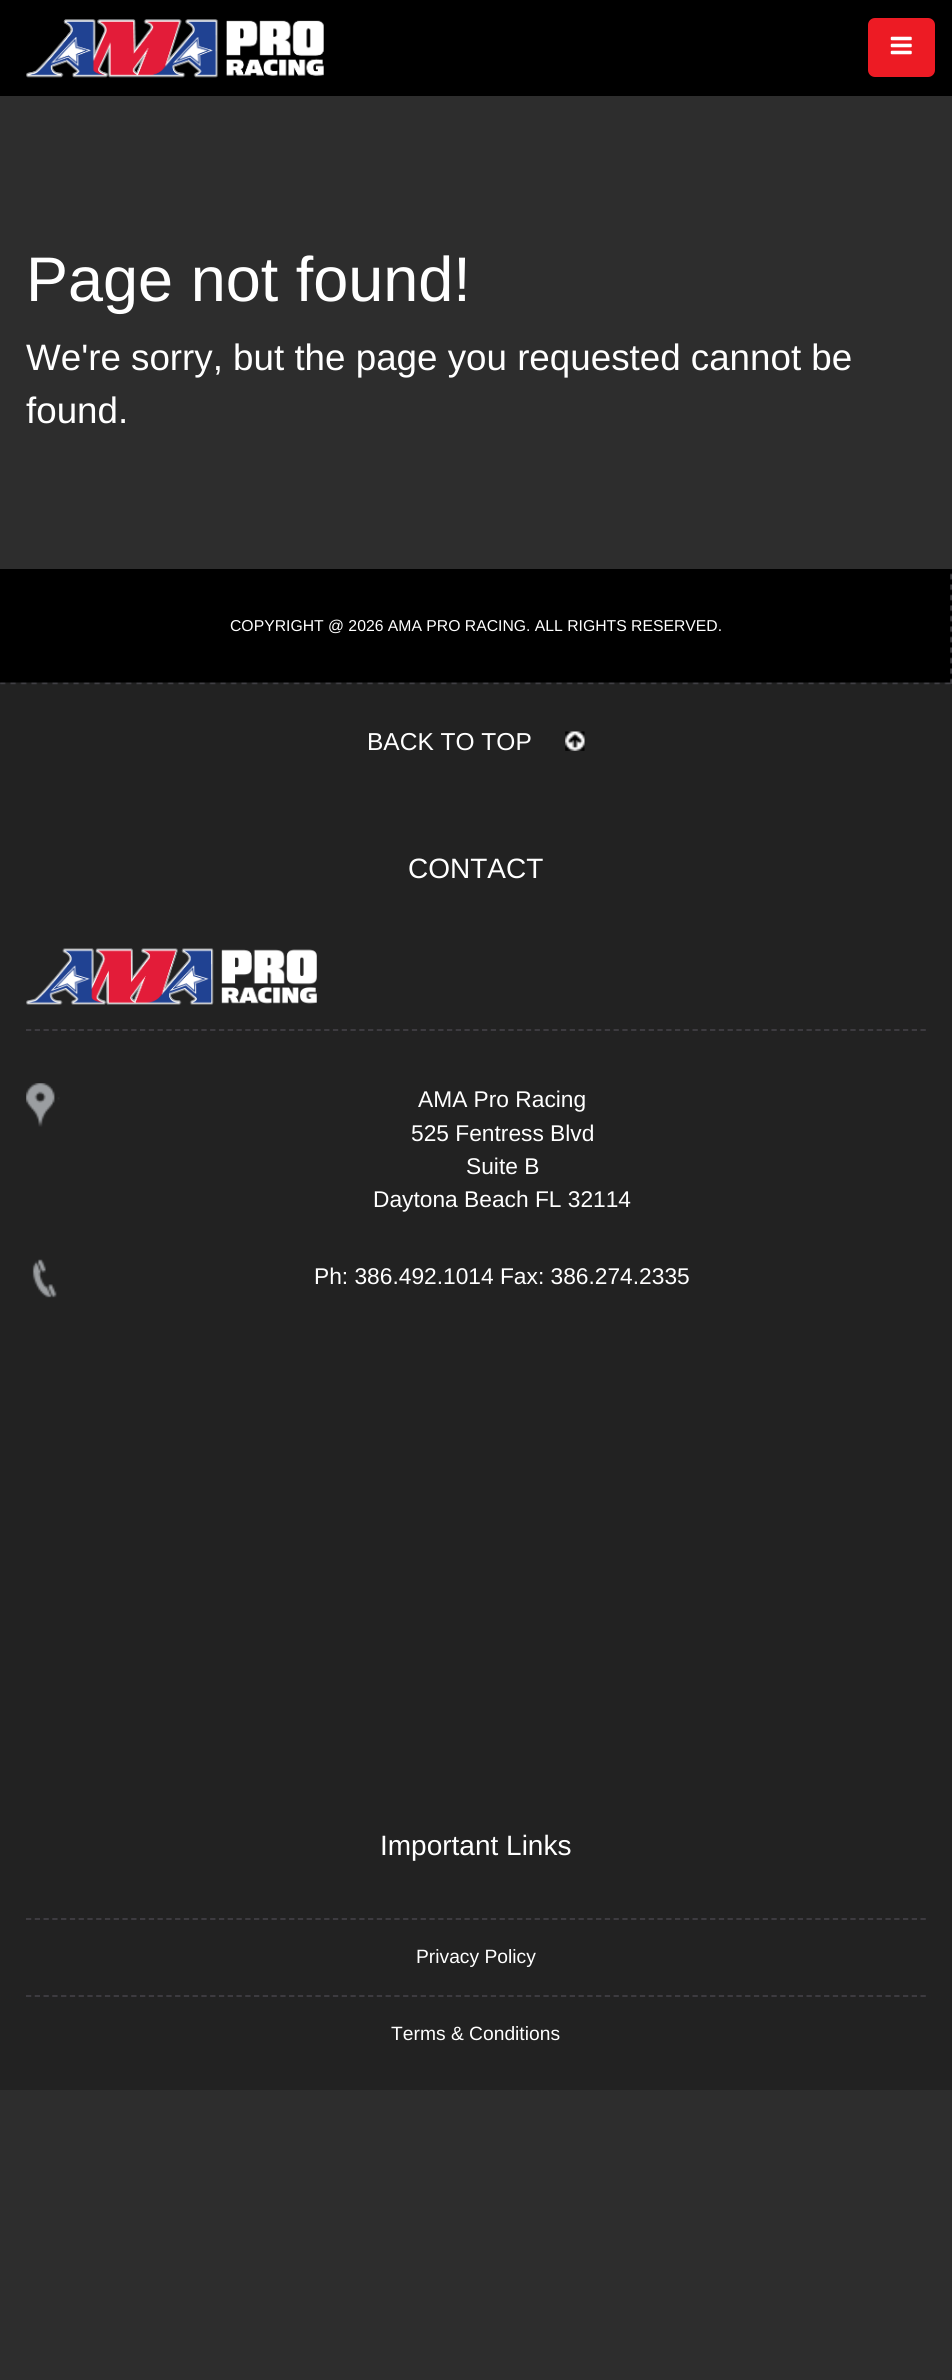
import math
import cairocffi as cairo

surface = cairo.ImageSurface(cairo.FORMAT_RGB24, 952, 2380)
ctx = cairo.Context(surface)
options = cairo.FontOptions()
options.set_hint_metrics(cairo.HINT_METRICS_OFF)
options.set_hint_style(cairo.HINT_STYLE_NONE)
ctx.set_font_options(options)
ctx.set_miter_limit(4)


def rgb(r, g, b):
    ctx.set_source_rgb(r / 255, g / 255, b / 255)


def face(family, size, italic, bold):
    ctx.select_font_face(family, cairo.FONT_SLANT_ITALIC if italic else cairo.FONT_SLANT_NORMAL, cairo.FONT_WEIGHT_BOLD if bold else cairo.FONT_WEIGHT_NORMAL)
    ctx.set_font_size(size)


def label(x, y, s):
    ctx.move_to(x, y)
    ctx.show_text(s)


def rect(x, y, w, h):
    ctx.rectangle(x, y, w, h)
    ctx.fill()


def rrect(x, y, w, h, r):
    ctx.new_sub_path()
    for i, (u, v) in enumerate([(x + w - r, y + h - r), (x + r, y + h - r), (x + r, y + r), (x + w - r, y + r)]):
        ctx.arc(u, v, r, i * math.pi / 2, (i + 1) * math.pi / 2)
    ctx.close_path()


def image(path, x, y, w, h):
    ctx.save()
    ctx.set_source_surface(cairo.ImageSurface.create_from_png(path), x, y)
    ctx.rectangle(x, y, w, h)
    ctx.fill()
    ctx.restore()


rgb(45, 45, 45)
ctx.paint()
rgb(0, 0, 0)
rect(0, 0, 952, 96)
image('image0.png', 26, 19, 298, 59)
rgb(237, 27, 36)
rrect(868, 18, 67, 59, 7)
ctx.fill()
image('image1.png', 890, 36, 22, 19)
face('Liberation Sans', 63, 0, 0)
rgb(255, 255, 255)
label(26, 301, 'Page not found!')
face('Liberation Sans', 36.75, 0, 0)
label(26, 370, 'We\'re sorry, but the page you requested cannot be')
label(26, 423, 'found.')
rgb(34, 34, 34)
rect(0, 684, 952, 1406)
rgb(0, 0, 0)
rect(0, 569, 951, 114)
image('image2.png', 0, 682, 952, 3)
image('image3.png', 950, 569, 2, 115)
face('Liberation Sans', 15.75, 0, 0)
rgb(255, 255, 255)
label(230, 631, 'COPYRIGHT @ 2026 AMA PRO RACING. ALL RIGHTS RESERVED.')
face('Liberation Sans', 24.5, 0, 0)
label(367, 750, 'BACK TO TOP')
image('image4.png', 565, 731, 20, 20)
face('Liberation Sans', 28, 0, 0)
label(408, 878, 'CONTACT')
ctx.new_path()
ctx.move_to(26, 1030)
ctx.line_to(926, 1030)
rgb(64, 62, 68)
ctx.set_line_width(1.8)
ctx.set_dash([5.25, 3.52])
ctx.stroke()
image('image5.png', 26, 948, 291, 57)
image('image6.png', 26, 1083, 34, 44)
face('Liberation Sans', 22.75, 0, 0)
rgb(255, 255, 255)
label(418, 1107, 'AMA Pro Racing')
label(411, 1141, '525 Fentress Blvd')
label(466, 1174, 'Suite B')
label(373, 1207, 'Daytona Beach FL 32114')
image('image7.png', 32, 1259, 25, 39)
label(314, 1284, 'Ph: 386.492.1014 Fax: 386.274.2335')
face('Liberation Sans', 28, 0, 0)
label(380, 1855, 'Important Links')
ctx.new_path()
ctx.move_to(26, 1919)
ctx.line_to(926, 1919)
rgb(64, 62, 68)
ctx.stroke()
face('Liberation Sans', 19.25, 0, 0)
rgb(255, 255, 255)
label(416, 1963, 'Privacy Policy')
ctx.new_path()
ctx.move_to(26, 1996)
ctx.line_to(926, 1996)
rgb(64, 62, 68)
ctx.stroke()
rgb(255, 255, 255)
label(391, 2040, 'Terms & Conditions')
surface.write_to_png('render.png')
